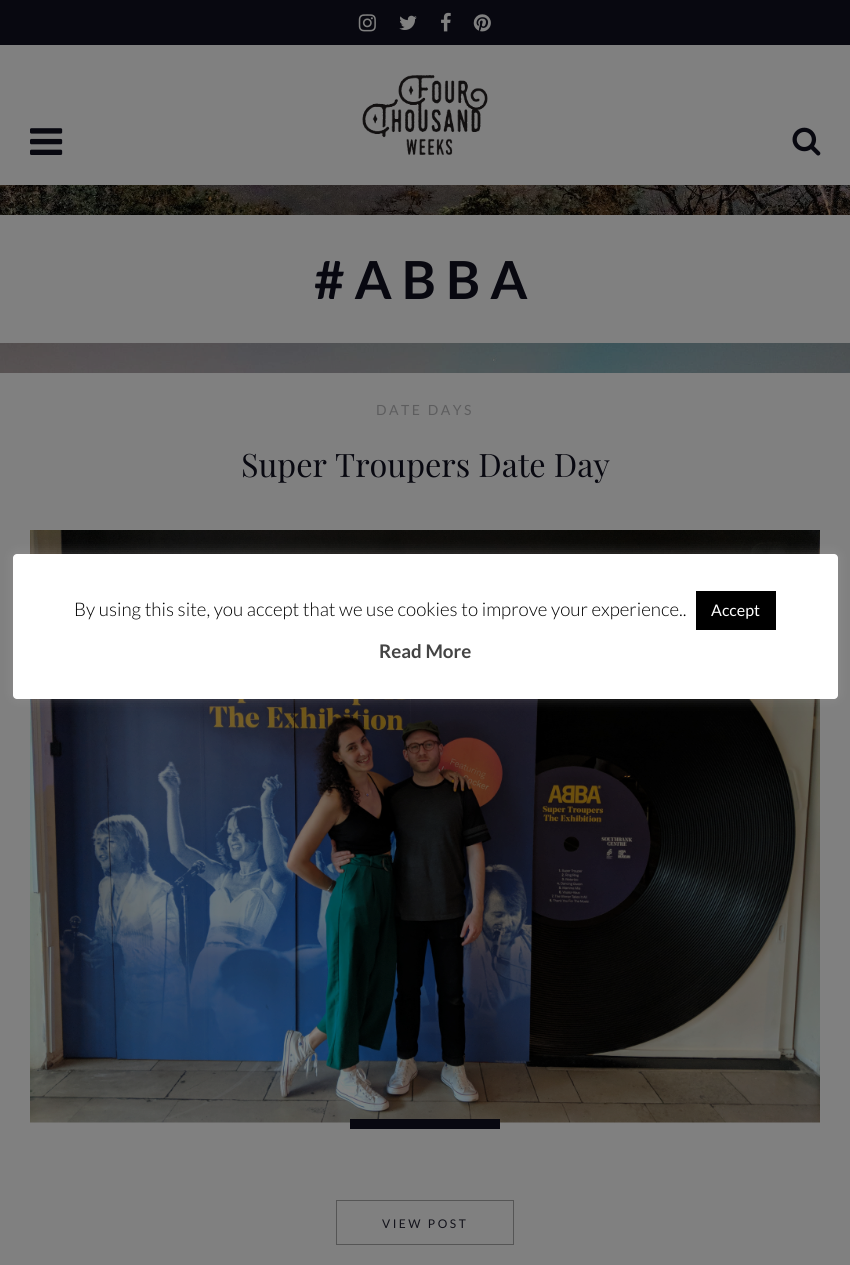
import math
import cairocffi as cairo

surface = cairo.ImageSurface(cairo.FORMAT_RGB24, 850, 1265)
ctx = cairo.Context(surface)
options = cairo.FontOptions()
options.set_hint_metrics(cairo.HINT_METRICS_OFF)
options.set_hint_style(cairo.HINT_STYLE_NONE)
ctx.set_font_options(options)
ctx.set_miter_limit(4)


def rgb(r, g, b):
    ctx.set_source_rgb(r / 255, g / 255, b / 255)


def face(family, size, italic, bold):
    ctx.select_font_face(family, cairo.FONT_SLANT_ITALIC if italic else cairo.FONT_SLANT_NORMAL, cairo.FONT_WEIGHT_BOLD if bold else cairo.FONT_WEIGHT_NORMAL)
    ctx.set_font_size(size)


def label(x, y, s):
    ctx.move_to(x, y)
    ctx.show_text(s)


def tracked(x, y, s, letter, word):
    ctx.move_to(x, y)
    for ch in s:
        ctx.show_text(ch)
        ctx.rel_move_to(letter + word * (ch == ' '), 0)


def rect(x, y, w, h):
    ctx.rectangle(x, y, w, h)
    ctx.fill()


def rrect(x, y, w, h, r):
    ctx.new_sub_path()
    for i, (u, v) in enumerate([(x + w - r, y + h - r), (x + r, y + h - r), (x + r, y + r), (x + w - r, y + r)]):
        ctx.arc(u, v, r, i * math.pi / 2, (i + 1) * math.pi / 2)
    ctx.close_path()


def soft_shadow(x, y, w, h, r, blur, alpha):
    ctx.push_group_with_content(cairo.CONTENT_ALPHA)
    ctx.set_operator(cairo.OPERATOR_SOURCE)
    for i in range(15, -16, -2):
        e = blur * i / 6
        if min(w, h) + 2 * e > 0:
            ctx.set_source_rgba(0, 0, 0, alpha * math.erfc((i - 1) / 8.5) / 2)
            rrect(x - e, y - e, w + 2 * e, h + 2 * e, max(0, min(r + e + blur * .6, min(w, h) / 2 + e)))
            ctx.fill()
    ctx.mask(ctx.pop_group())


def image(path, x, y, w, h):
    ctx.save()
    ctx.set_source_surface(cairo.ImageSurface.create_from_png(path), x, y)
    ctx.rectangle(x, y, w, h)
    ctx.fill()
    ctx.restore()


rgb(255, 255, 255)
ctx.paint()
image('image0.png', 0, 185, 850, 188)
rgb(128, 128, 128)
rect(0, 45, 850, 140)
rgb(8, 8, 16)
rect(0, 0, 850, 45)
image('image1.png', 358, 14, 18, 18)
image('image2.png', 399, 15, 18, 15)
image('image3.png', 441, 12, 10, 20)
image('image4.png', 473, 14, 18, 18)
image('image5.png', 30, 128, 33, 27)
image('image6.png', 362, 75, 126, 80)
image('image7.png', 792, 127, 29, 29)
rgb(128, 128, 128)
rect(0, 215, 850, 128)
face('Lato', 52.5, 0, 1)
rgb(8, 8, 16)
tracked(314, 299, '#ABBA', 10, 0)
rgb(128, 128, 128)
rect(0, 373, 850, 892)
face('Lato', 14, 0, 0)
rgb(93, 93, 94)
tracked(376, 415, 'DATE DAYS', 2.5, 0)
face('Playfair Display', 32.4, 0, 0)
rgb(8, 8, 16)
label(241, 477, 'Super Troupers Date Day')
image('image8.png', 30, 530, 790, 593)
rect(350, 1119, 150, 10)
ctx.rectangle(336.5, 1200.5, 177, 44)
rgb(85, 85, 85)
ctx.set_line_width(1)
ctx.stroke()
face('Lato', 12, 0, 0)
rgb(18, 18, 26)
tracked(382, 1228, 'VIEW POST', 2.5, 0)
rgb(172, 171, 171)
soft_shadow(13, 553, 825, 145, 4, 6, 0.3)
rgb(255, 255, 255)
rrect(13, 554, 825, 145, 4)
ctx.fill()
face('Lato Light', 18.75, 0, 0)
rgb(0, 0, 0)
label(74, 616, 'By using this site, you accept that we use cookies to improve your experience..')
rect(696, 591, 80, 39)
face('Lato', 16, 0, 0)
rgb(255, 255, 255)
label(711, 616, 'Accept')
face('Lato', 18.75, 0, 1)
rgb(68, 68, 68)
label(379, 658, 'Read More')
surface.write_to_png('render.png')
